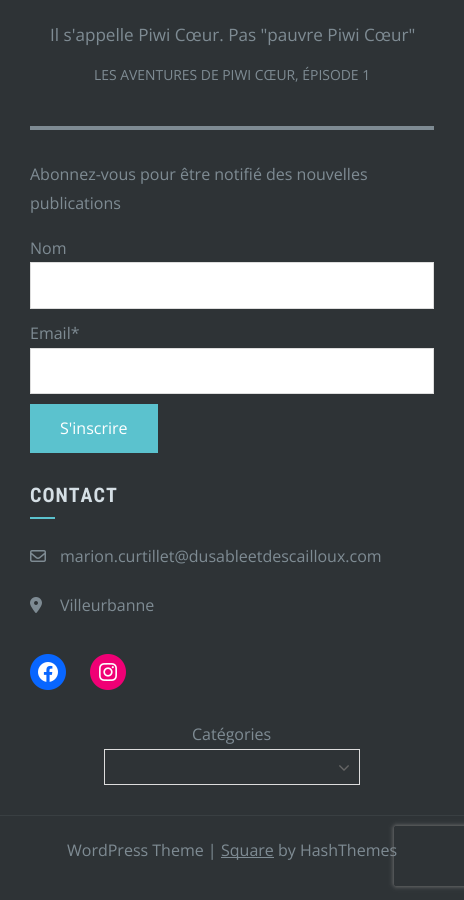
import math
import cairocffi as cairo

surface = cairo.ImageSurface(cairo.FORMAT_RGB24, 464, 900)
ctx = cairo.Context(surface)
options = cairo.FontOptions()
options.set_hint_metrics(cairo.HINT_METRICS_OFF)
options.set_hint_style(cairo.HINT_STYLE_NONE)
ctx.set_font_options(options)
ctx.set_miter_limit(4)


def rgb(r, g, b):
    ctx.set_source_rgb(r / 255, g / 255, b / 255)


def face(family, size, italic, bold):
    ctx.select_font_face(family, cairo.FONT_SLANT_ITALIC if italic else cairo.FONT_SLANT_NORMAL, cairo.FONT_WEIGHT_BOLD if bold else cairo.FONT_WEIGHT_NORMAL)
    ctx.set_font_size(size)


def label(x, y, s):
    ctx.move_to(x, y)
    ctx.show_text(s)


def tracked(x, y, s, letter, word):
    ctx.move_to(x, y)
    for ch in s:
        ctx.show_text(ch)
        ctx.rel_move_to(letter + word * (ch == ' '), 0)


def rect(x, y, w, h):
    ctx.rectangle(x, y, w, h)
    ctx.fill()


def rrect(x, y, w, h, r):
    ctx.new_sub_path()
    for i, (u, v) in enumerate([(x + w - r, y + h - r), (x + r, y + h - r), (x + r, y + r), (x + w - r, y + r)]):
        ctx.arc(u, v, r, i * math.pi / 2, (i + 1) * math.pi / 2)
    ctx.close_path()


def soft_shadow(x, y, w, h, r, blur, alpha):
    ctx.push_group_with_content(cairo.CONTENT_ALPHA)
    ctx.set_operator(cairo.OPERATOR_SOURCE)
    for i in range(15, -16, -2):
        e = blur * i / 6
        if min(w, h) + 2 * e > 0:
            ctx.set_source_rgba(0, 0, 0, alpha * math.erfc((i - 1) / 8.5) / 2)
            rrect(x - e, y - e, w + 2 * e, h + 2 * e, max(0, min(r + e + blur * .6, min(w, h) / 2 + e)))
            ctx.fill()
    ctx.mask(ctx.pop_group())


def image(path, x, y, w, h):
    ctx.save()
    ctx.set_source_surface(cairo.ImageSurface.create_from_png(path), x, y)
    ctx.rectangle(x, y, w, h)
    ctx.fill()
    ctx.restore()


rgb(46, 51, 54)
ctx.paint()
rgb(57, 63, 66)
rect(0, 815, 464, 1)
rgb(126, 139, 147)
rect(30, 126, 404, 4)
face('Open Sans', 17.1, 0, 0)
label(50, 41, 'Il s\'appelle Piwi Cœur. Pas "pauvre Piwi Cœur"')
face('Open Sans', 13.9, 0, 0)
label(94, 80, 'LES AVENTURES DE PIWI CŒUR, ÉPISODE 1')
face('Open Sans', 16, 0, 0)
label(30, 180, 'Abonnez-vous pour être notifié des nouvelles')
label(30, 209, 'publications')
label(30, 254, 'Nom')
rgb(255, 255, 255)
ctx.rectangle(30.5, 262.5, 403, 46)
ctx.fill_preserve()
rgb(221, 221, 221)
ctx.set_line_width(1)
ctx.stroke()
rgb(126, 139, 147)
label(30, 339, 'Email*')
rgb(255, 255, 255)
ctx.rectangle(30.5, 348.5, 403, 45)
ctx.fill_preserve()
rgb(221, 221, 221)
ctx.stroke()
rgb(91, 194, 206)
rect(30, 404, 128, 49)
rgb(255, 255, 255)
label(60, 434, 'S\'inscrire')
face('Roboto Condensed', 20, 0, 1)
rgb(213, 223, 229)
tracked(30, 502, 'CONTACT', 1, 0)
rgb(91, 194, 206)
rect(30, 517, 25, 2)
image('image0.png', 30, 550, 16, 12)
face('Open Sans', 16, 0, 0)
rgb(126, 139, 147)
label(60, 562, 'marion.curtillet@dusableetdescailloux.com')
image('image1.png', 30, 597, 12, 16)
label(60, 611, 'Villeurbanne')
rgb(8, 102, 255)
ctx.new_path()
ctx.arc(48, 672, 18, 0, 2 * math.pi)
ctx.fill()
image('image2.png', 38, 662, 20, 20)
rgb(240, 0, 117)
ctx.arc(108, 672, 18, 0, 2 * math.pi)
ctx.fill()
image('image3.png', 99, 663, 18, 18)
rgb(126, 139, 147)
label(192, 740, 'Catégories')
image('image4.png', 339, 765, 10, 6)
ctx.rectangle(104.5, 749.5, 255, 35)
rgb(221, 221, 221)
ctx.stroke()
rgb(126, 139, 147)
label(67, 856, 'WordPress Theme |')
rect(221, 857, 53, 1)
label(221, 856, 'Square by HashThemes')
ctx.save()
ctx.set_fill_rule(cairo.FILL_RULE_EVEN_ODD)
ctx.new_path()
ctx.move_to(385, 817)
ctx.line_to(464, 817)
ctx.line_to(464, 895)
ctx.line_to(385, 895)
ctx.close_path()
ctx.move_to(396, 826)
ctx.line_to(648, 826)
ctx.curve_to(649, 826, 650, 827, 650, 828)
ctx.line_to(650, 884)
ctx.curve_to(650, 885, 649, 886, 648, 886)
ctx.line_to(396, 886)
ctx.curve_to(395, 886, 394, 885, 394, 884)
ctx.line_to(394, 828)
ctx.curve_to(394, 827, 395, 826, 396, 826)
ctx.close_path()
ctx.clip()
rgb(128, 128, 128)
soft_shadow(394, 826, 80, 60, 2, 2.5, 1)
ctx.restore()
surface.write_to_png('render.png')
